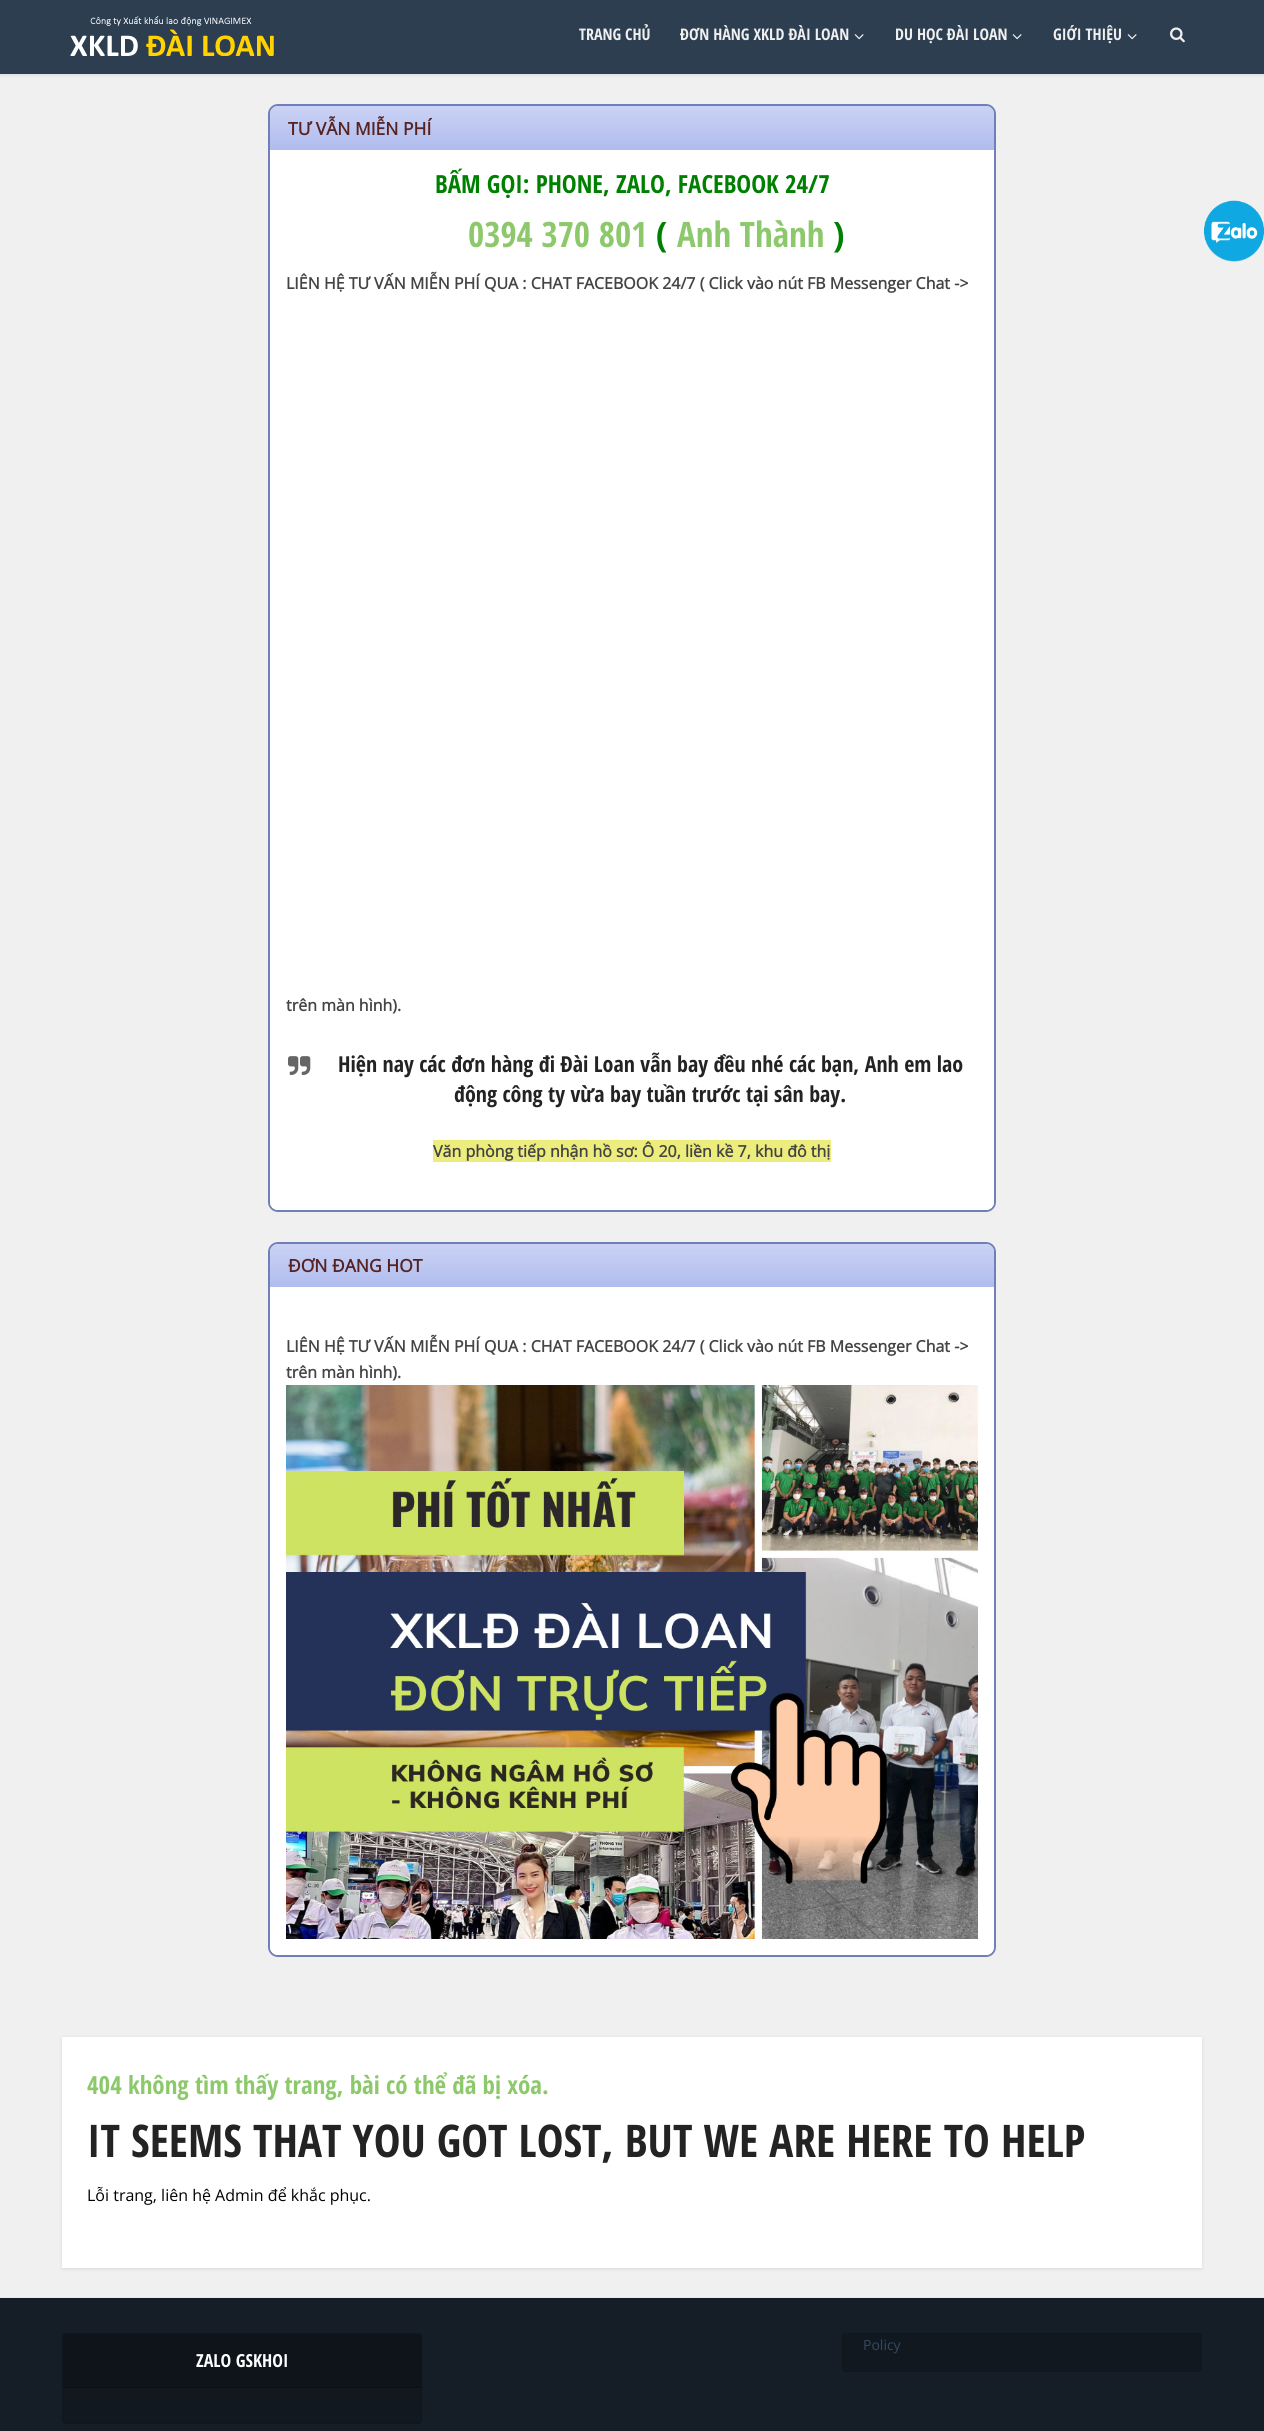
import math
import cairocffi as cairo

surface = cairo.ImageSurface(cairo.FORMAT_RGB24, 1264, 2431)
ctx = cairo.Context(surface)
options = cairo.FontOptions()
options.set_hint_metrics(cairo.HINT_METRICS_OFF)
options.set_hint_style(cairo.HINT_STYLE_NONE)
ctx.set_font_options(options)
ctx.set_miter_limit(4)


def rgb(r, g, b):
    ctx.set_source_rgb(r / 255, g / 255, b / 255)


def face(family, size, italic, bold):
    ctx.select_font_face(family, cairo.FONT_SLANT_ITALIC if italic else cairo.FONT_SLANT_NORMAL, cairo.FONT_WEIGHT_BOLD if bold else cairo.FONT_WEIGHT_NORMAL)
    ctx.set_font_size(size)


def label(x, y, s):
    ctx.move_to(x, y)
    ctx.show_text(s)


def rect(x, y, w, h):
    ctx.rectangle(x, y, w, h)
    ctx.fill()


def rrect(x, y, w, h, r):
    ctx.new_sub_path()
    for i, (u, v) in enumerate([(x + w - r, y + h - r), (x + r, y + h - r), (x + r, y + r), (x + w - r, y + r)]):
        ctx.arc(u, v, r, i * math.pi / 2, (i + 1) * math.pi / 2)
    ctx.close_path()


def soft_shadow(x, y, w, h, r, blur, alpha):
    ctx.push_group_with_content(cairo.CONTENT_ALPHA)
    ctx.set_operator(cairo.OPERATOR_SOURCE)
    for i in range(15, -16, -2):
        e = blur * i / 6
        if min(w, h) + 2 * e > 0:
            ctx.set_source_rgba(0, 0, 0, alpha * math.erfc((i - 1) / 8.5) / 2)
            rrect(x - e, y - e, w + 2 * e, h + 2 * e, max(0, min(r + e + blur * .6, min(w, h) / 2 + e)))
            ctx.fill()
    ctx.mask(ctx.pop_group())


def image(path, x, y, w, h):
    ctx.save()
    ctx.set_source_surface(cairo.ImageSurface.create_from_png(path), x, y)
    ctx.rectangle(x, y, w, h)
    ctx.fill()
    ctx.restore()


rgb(240, 240, 240)
ctx.paint()
rgb(0, 0, 0)
soft_shadow(0, -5, 1264, 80, 0, 1.5, 0.1)
rgb(44, 62, 80)
rect(0, 0, 1264, 74)
image('image0.png', 70, 16, 204, 40)
face('Open Sans Condensed', 16, 0, 1)
rgb(239, 239, 239)
label(579, 40, 'TRANG CHỦ')
label(680, 40, 'ĐƠN HÀNG XKLD ĐÀI LOAN')
image('image1.png', 854, 34, 10, 6)
label(895, 40, 'DU HỌC ĐÀI LOAN')
image('image1.png', 1012, 34, 10, 6)
label(1053, 40, 'GIỚI THIỆU')
image('image1.png', 1127, 34, 10, 6)
image('image2.png', 1170, 27, 15, 16)
rrect(269, 105, 726, 1106, 9)
rgb(113, 127, 185)
ctx.stroke()
rgb(164, 178, 236)
ctx.new_path()
ctx.move_to(278, 106)
ctx.line_to(986, 106)
ctx.curve_to(990.5, 106, 994, 109.5, 994, 114)
ctx.line_to(994, 150)
ctx.line_to(270, 150)
ctx.line_to(270, 114)
ctx.curve_to(270, 109.5, 273.5, 106, 278, 106)
ctx.close_path()
ctx.fill()
image('image3.png', 270, 106, 724, 44)
face('Open Sans', 17.5, 0, 1)
rgb(86, 34, 34)
label(288, 135, 'TƯ VẪN MIỄN PHÍ')
rgb(255, 255, 255)
ctx.new_path()
ctx.move_to(270, 150)
ctx.line_to(994, 150)
ctx.line_to(994, 1202)
ctx.curve_to(994, 1206.5, 990.5, 1210, 986, 1210)
ctx.line_to(278, 1210)
ctx.curve_to(273.5, 1210, 270, 1206.5, 270, 1202)
ctx.close_path()
ctx.fill()
face('Open Sans Condensed', 25, 0, 1)
rgb(0, 128, 0)
label(435, 193, 'BẤM GỌI: PHONE, ZALO, FACEBOOK 24/7')
face('Open Sans Condensed', 35, 0, 1)
rgb(141, 201, 108)
label(468, 247, '0394 370 801')
rgb(0, 128, 0)
label(656, 247, '(')
rgb(141, 201, 108)
label(677, 247, 'Anh Thành')
rgb(0, 128, 0)
label(833, 247, ')')
face('Open Sans', 16, 0, 1)
rgb(68, 68, 68)
label(286, 289, 'LIÊN HỆ TƯ VẤN MIỄN PHÍ QUA : CHAT FACEBOOK 24/7 ( Click vào nút FB Messenger Chat ->')
label(286, 1011, 'trên màn hình).')
image('image4.png', 288, 1056, 23, 19)
face('Open Sans Condensed', 22, 0, 1)
rgb(35, 35, 35)
label(338, 1072, 'Hiện nay các đơn hàng đi Đài Loan vẫn bay đều nhé các bạn, Anh em lao')
label(454, 1102, 'động công ty vừa bay tuần trước tại sân bay.')
rgb(237, 237, 125)
rect(433, 1140, 398, 22)
face('Open Sans', 16, 0, 1)
rgb(68, 68, 68)
label(433, 1157, 'Văn phòng tiếp nhận hồ sơ: Ô 20, liền kề 7, khu đô thị')
rrect(269, 1243, 726, 713, 9)
rgb(113, 127, 185)
ctx.stroke()
rgb(164, 178, 236)
ctx.new_path()
ctx.move_to(278, 1244)
ctx.line_to(986, 1244)
ctx.curve_to(990.5, 1244, 994, 1247.5, 994, 1252)
ctx.line_to(994, 1287)
ctx.line_to(270, 1287)
ctx.line_to(270, 1252)
ctx.curve_to(270, 1247.5, 273.5, 1244, 278, 1244)
ctx.close_path()
ctx.fill()
image('image5.png', 270, 1244, 724, 43)
face('Open Sans', 17.5, 0, 1)
rgb(86, 34, 34)
label(288, 1272, 'ĐƠN ĐANG HOT')
rgb(255, 255, 255)
ctx.new_path()
ctx.move_to(270, 1287)
ctx.line_to(994, 1287)
ctx.line_to(994, 1947)
ctx.curve_to(994, 1951.5, 990.5, 1955, 986, 1955)
ctx.line_to(278, 1955)
ctx.curve_to(273.5, 1955, 270, 1951.5, 270, 1947)
ctx.close_path()
ctx.fill()
face('Open Sans', 16, 0, 1)
rgb(68, 68, 68)
label(286, 1352, 'LIÊN HỆ TƯ VẤN MIỄN PHÍ QUA : CHAT FACEBOOK 24/7 ( Click vào nút FB Messenger Chat ->')
label(286, 1378, 'trên màn hình).')
image('image6.png', 286, 1385, 692, 554)
rgb(0, 0, 0)
soft_shadow(62, 2038, 1140, 231, 0, 1.5, 0.1)
rgb(255, 255, 255)
rect(62, 2037, 1140, 231)
face('Open Sans Condensed', 25, 0, 1)
rgb(141, 201, 108)
label(87, 2094, '404 không tìm thấy trang, bài có thể đã bị xóa.')
face('Open Sans Condensed', 45, 0, 1)
rgb(35, 35, 35)
label(87, 2157, 'IT SEEMS THAT YOU GOT LOST, BUT WE ARE HERE TO HELP')
face('Open Sans', 16, 0, 0)
rgb(0, 0, 0)
label(87, 2201, 'Lỗi trang, liên hệ Admin để khắc phục.')
rgb(0, 0, 0)
soft_shadow(0, 2300, 1264, 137, 0, 2, 0.2)
rgb(21, 30, 39)
rect(0, 2298, 1264, 133)
rgb(17, 24, 31)
rrect(842, 2333, 360, 39, 4)
ctx.fill()
rrect(842.5, 2333.5, 359, 38, 3.5)
ctx.set_source_rgba(0, 0, 0, 0.1)
ctx.set_line_width(1)
ctx.stroke()
face('Open Sans', 14, 0, 0)
rgb(52, 73, 94)
label(863, 2350, 'Policy')
rgb(17, 24, 31)
rrect(62, 2333, 360, 91, 4)
ctx.fill()
rrect(62.5, 2333.5, 359, 90, 3.5)
ctx.set_source_rgba(0, 0, 0, 0.1)
ctx.stroke()
image('image7.png', 1204, 200, 60, 62)
rgb(14, 20, 26)
rect(63, 2334, 358, 53)
rgb(11, 16, 21)
rect(63, 2387, 358, 1)
face('Open Sans Condensed', 18, 0, 1)
rgb(255, 255, 255)
label(196, 2367, 'ZALO GSKHOI')
surface.write_to_png('render.png')
